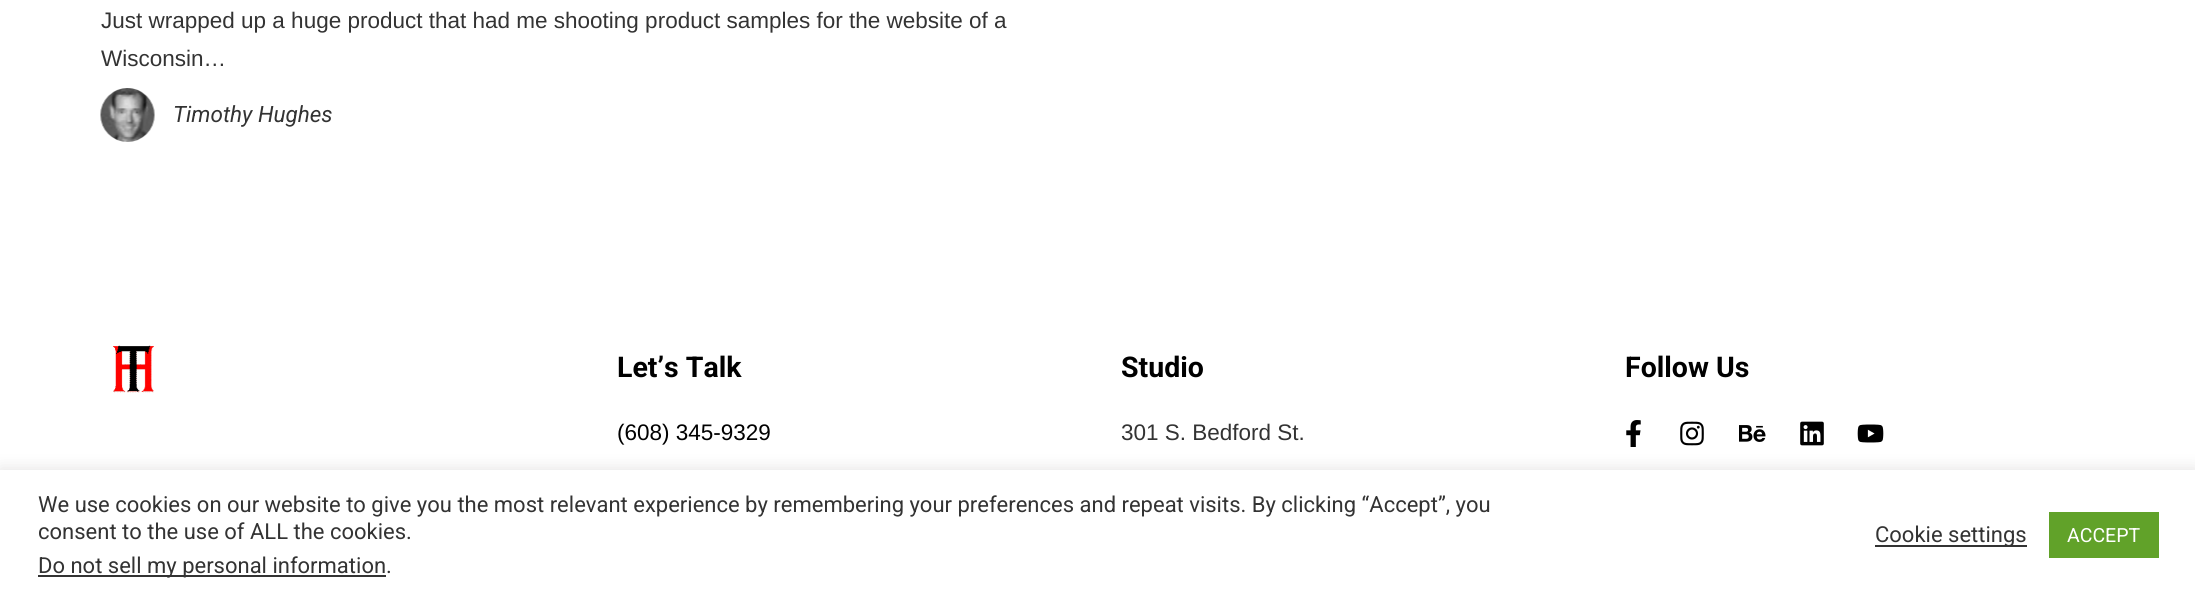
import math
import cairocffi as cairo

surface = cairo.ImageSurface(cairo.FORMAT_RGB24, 2195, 599)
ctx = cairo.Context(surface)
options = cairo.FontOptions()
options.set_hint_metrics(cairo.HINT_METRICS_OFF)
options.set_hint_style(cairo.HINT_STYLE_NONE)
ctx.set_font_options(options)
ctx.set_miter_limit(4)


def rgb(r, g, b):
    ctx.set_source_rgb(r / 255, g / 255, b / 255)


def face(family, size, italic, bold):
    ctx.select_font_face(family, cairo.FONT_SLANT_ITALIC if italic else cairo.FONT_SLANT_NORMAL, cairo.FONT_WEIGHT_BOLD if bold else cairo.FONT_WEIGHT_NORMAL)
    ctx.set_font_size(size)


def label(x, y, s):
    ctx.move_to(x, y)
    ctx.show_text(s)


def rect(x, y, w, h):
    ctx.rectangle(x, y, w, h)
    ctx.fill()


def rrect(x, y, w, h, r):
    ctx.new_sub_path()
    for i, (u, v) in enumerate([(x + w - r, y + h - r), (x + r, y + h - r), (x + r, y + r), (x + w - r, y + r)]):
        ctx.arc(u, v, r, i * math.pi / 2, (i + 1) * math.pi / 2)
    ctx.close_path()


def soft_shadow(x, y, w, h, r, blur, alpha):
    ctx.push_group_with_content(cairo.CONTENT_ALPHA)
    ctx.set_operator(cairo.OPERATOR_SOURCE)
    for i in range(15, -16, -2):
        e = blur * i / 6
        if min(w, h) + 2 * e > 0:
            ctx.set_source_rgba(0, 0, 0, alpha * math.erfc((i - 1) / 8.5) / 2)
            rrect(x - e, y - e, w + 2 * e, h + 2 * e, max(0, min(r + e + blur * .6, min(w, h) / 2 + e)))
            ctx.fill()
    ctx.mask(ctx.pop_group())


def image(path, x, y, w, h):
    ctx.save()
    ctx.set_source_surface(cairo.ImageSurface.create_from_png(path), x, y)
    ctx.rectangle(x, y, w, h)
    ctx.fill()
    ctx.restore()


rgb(255, 255, 255)
ctx.paint()
face('Liberation Sans', 22.5, 0, 0)
rgb(51, 51, 51)
label(101, 28, 'Just wrapped up a huge product that had me shooting product samples for the website of a')
label(101, 66, 'Wisconsin…')
image('image0.png', 100, 88, 55, 54)
face('Roboto', 22.5, 1, 0)
label(173, 122, 'Timothy Hughes')
image('image1.png', 113, 345, 41, 48)
face('Roboto', 28.5, 0, 1)
rgb(0, 0, 0)
label(617, 377, 'Let’s Talk')
face('Liberation Sans', 22.5, 0, 0)
label(617, 440, '(608) 345-9329')
face('Roboto', 28.5, 0, 1)
label(1121, 377, 'Studio')
face('Liberation Sans', 22.5, 0, 0)
rgb(51, 51, 51)
label(1121, 440, '301 S. Bedford St.')
face('Roboto', 28.5, 0, 1)
rgb(0, 0, 0)
label(1625, 377, 'Follow Us')
image('image2.png', 1626, 420, 15, 27)
image('image3.png', 1680, 421, 24, 25)
image('image4.png', 1739, 425, 27, 17)
image('image5.png', 1800, 421, 24, 25)
image('image6.png', 1857, 424, 27, 19)
rgb(172, 171, 171)
soft_shadow(0, 468, 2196, 131, 0, 7.5, 0.3)
rgb(255, 255, 255)
rect(0, 470, 2195, 129)
face('Roboto', 22, 0, 0)
rgb(51, 51, 51)
label(38, 512, 'We use cookies on our website to give you the most relevant experience by remembering your preferences and repeat visits. By clicking “Accept”, you')
label(38, 539, 'consent to the use of ALL the cookies.')
rect(38, 575, 348, 2)
label(38, 573, 'Do not sell my personal information.')
rect(1875, 545, 152, 2)
label(1875, 542, 'Cookie settings')
rgb(97, 162, 41)
rect(2049, 512, 110, 46)
face('Roboto', 19.5, 0, 0)
rgb(255, 255, 255)
label(2067, 542, 'ACCEPT')
surface.write_to_png('render.png')
